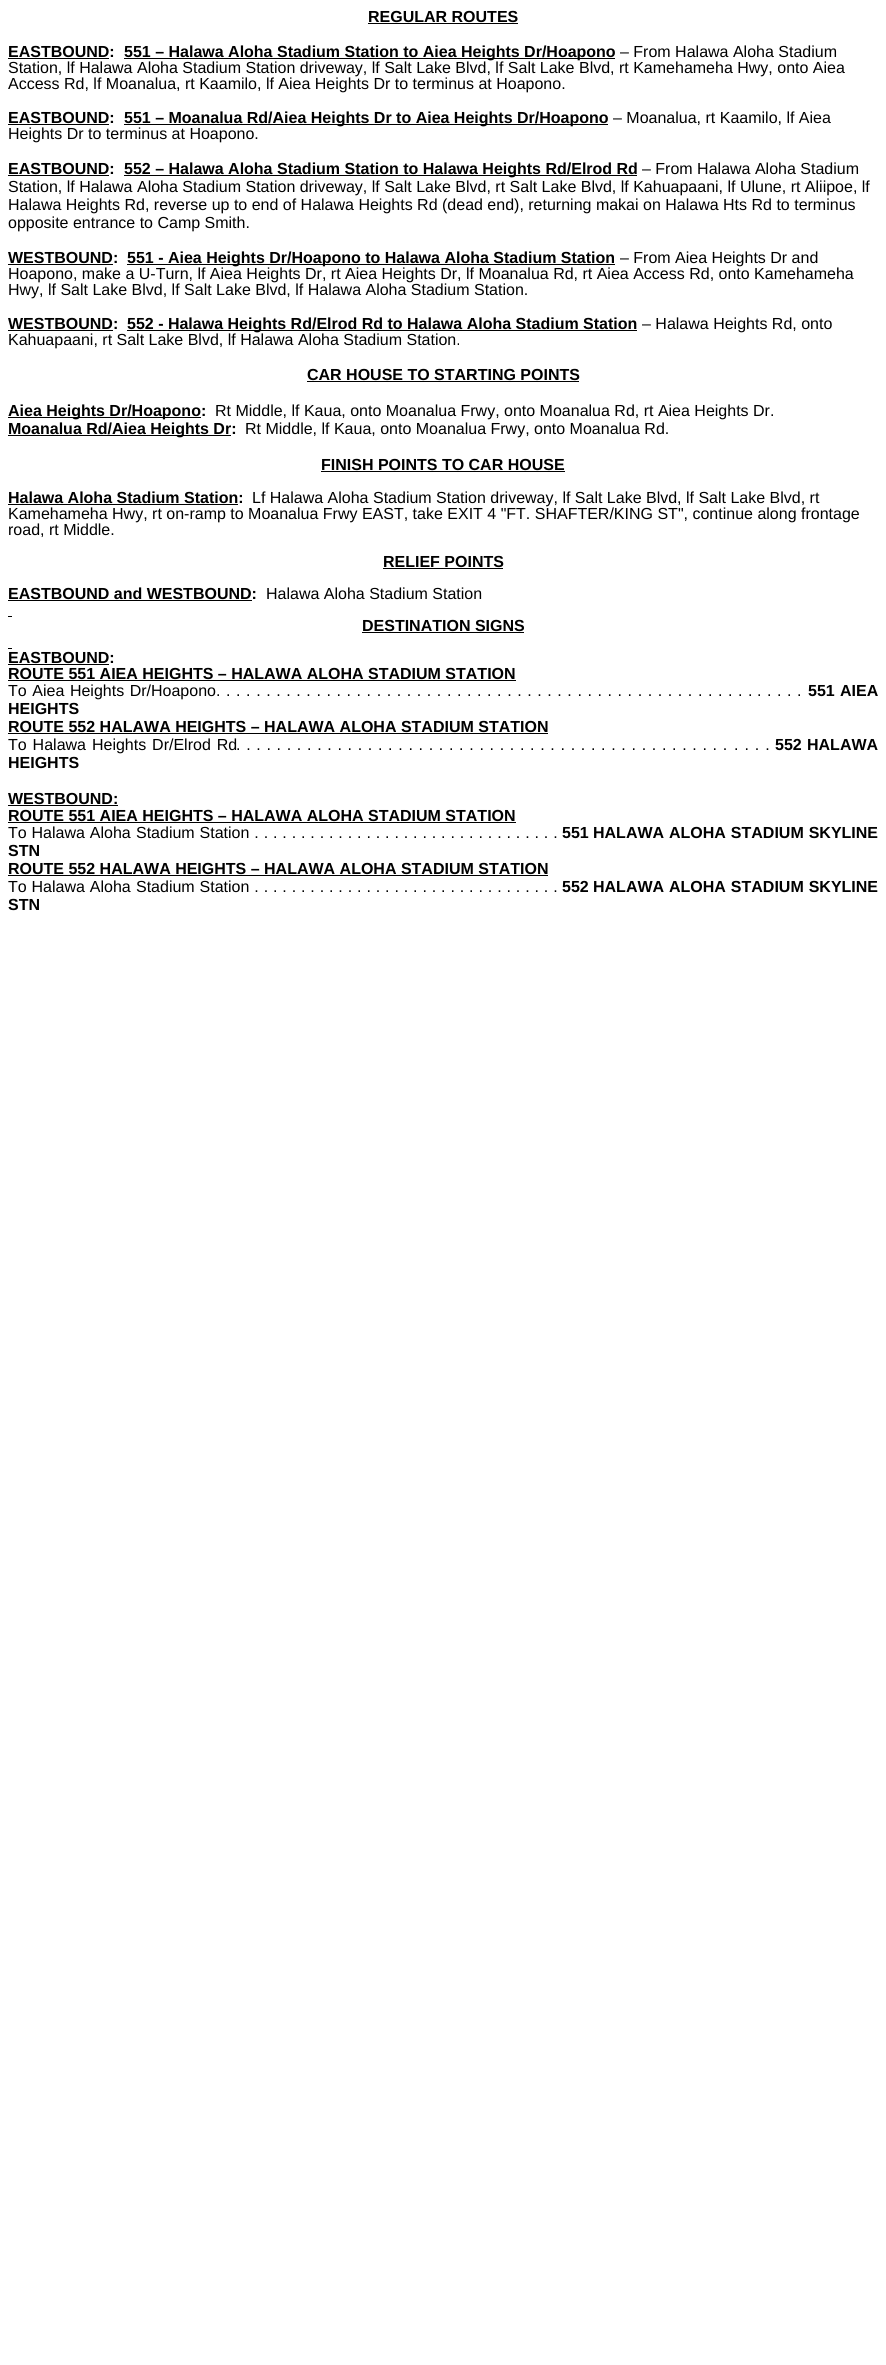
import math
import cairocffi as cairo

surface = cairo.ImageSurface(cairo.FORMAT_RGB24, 886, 2365)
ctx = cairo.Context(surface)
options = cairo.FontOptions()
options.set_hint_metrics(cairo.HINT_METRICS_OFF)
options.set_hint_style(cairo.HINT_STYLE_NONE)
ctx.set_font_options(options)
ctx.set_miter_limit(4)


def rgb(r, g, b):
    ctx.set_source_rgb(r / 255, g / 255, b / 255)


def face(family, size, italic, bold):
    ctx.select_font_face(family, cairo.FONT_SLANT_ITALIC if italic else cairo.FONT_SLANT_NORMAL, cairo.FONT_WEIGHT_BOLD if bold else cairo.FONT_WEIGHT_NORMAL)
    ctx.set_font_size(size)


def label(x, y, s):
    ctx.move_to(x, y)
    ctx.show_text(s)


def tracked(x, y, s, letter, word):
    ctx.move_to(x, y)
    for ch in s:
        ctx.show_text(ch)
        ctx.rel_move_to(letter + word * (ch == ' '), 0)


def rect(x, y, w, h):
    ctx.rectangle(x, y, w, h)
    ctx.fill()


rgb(255, 255, 255)
ctx.paint()
face('Liberation Sans', 16, 0, 1)
rgb(0, 0, 0)
label(368, 22, 'REGULAR ROUTES')
rect(368, 23, 150, 1)
label(8, 57, 'EASTBOUND:')
rect(8, 58, 101, 1)
rect(124, 58, 491, 1)
label(124, 57, '551 – Halawa Aloha Stadium Station to Aiea Heights Dr/Hoapono')
face('Liberation Sans', 16, 0, 0)
label(620, 57, '– From Halawa Aloha Stadium')
label(8, 73, 'Station, lf Halawa Aloha Stadium Station driveway, lf Salt Lake Blvd, lf Salt Lake Blvd, rt Kamehameha Hwy, onto Aiea')
label(8, 89, 'Access Rd, lf Moanalua, rt Kaamilo, lf Aiea Heights Dr to terminus at Hoapono.')
face('Liberation Sans', 16, 0, 1)
label(8, 123, 'EASTBOUND:')
rect(8, 124, 101, 1)
rect(124, 124, 484, 1)
label(124, 123, '551 – Moanalua Rd/Aiea Heights Dr to Aiea Heights Dr/Hoapono')
face('Liberation Sans', 16, 0, 0)
label(613, 123, '– Moanalua, rt Kaamilo, lf Aiea')
label(8, 139, 'Heights Dr to terminus at Hoapono.')
face('Liberation Sans', 16, 0, 1)
label(8, 174, 'EASTBOUND:')
rect(8, 175, 101, 1)
rect(124, 175, 513, 1)
label(124, 174, '552 – Halawa Aloha Stadium Station to Halawa Heights Rd/Elrod Rd')
face('Liberation Sans', 16, 0, 0)
label(642, 174, '– From Halawa Aloha Stadium')
label(8, 192, 'Station, lf Halawa Aloha Stadium Station driveway, lf Salt Lake Blvd, rt Salt Lake Blvd, lf Kahuapaani, lf Ulune, rt Aliipoe, lf')
label(8, 210, 'Halawa Heights Rd, reverse up to end of Halawa Heights Rd (dead end), returning makai on Halawa Hts Rd to terminus')
label(8, 228, 'opposite entrance to Camp Smith.')
face('Liberation Sans', 16, 0, 1)
label(8, 263, 'WESTBOUND:')
rect(8, 264, 105, 1)
rect(127, 264, 313, 1)
label(127, 263, '551 - Aiea Heights Dr/Hoapono to Halawa Aloha Stadium Station')
rect(440, 264, 175, 1)
face('Liberation Sans', 16, 0, 0)
label(620, 263, '– From Aiea Heights Dr and')
label(8, 279, 'Hoapono, make a U-Turn, lf Aiea Heights Dr, rt Aiea Heights Dr, lf Moanalua Rd, rt Aiea Access Rd, onto Kamehameha')
label(8, 295, 'Hwy, lf Salt Lake Blvd, lf Salt Lake Blvd, lf Halawa Aloha Stadium Station.')
face('Liberation Sans', 16, 0, 1)
label(8, 329, 'WESTBOUND:')
rect(8, 330, 105, 1)
rect(127, 330, 510, 1)
label(127, 329, '552 - Halawa Heights Rd/Elrod Rd to Halawa Aloha Stadium Station')
face('Liberation Sans', 16, 0, 0)
label(642, 329, '– Halawa Heights Rd, onto')
label(8, 345, 'Kahuapaani, rt Salt Lake Blvd, lf Halawa Aloha Stadium Station.')
face('Liberation Sans', 16, 0, 1)
label(307, 380, 'CAR HOUSE TO STARTING POINTS')
rect(307, 381, 272, 1)
rect(8, 417, 193, 1)
label(8, 416, 'Aiea Heights Dr/Hoapono:')
face('Liberation Sans', 16, 0, 0)
label(215, 416, 'Rt Middle, lf Kaua, onto Moanalua Frwy, onto Moanalua Rd, rt Aiea Heights Dr.')
rect(8, 435, 223, 1)
face('Liberation Sans', 16, 0, 1)
label(8, 434, 'Moanalua Rd/Aiea Heights Dr:')
face('Liberation Sans', 16, 0, 0)
label(245, 434, 'Rt Middle, lf Kaua, onto Moanalua Frwy, onto Moanalua Rd.')
face('Liberation Sans', 16, 0, 1)
label(321, 470, 'FINISH POINTS TO CAR HOUSE')
rect(321, 471, 244, 1)
label(8, 503, 'Halawa Aloha Stadium Station:')
rect(8, 504, 230, 1)
face('Liberation Sans', 16, 0, 0)
label(252, 503, 'Lf Halawa Aloha Stadium Station driveway, lf Salt Lake Blvd, lf Salt Lake Blvd, rt')
label(8, 519, 'Kamehameha Hwy, rt on-ramp to Moanalua Frwy EAST, take EXIT 4 "FT. SHAFTER/KING ST", continue along frontage')
label(8, 535, 'road, rt Middle.')
face('Liberation Sans', 16, 0, 1)
label(383, 567, 'RELIEF POINTS')
rect(383, 568, 120, 1)
label(8, 599, 'EASTBOUND and WESTBOUND:')
rect(8, 600, 244, 1)
face('Liberation Sans', 16, 0, 0)
label(266, 599, 'Halawa Aloha Stadium Station')
rect(8, 616, 4, 1)
face('Liberation Sans', 16, 0, 1)
label(362, 631, 'DESTINATION SIGNS')
rect(362, 632, 162, 1)
rect(8, 648, 4, 1)
label(8, 663, 'EASTBOUND:')
rect(8, 664, 101, 1)
label(8, 679, 'ROUTE 551 AIEA HEIGHTS – HALAWA ALOHA STADIUM STATION')
rect(8, 680, 508, 1)
face('Liberation Sans', 16, 0, 0)
tracked(8, 696, 'To Aiea Heights Dr/', 0, 1.15)
label(151, 696, 'Hoapono')
tracked(216, 696, '. . . . . . . . . . . . . . . . . . . . . . . . . . . . . . . . . . . . . . . . . . . . . . . . . . . . . .', 0, 1.15)
tracked(757, 696, '. . . .', 0, 1.15)
label(797, 696, '.')
face('Liberation Sans', 16, 0, 1)
label(808, 696, '551')
label(840, 696, 'AIEA')
label(8, 714, 'HEIGHTS')
label(8, 732, 'ROUTE 552 HALAWA HEIGHTS – HALAWA ALOHA STADIUM STATION')
rect(8, 733, 540, 1)
face('Liberation Sans', 16, 0, 0)
tracked(8, 750, 'To Halawa Heights Dr/Elrod Rd', 0, 1.5)
tracked(236, 750, '. . . . . . . . . . . . . . . . . . . . . . . . . . . . . . . . . . . . . . . . . . . . . . . . .', 0, 1.25)
tracked(734, 750, '. . . .', 0, 1.5)
face('Liberation Sans', 16, 0, 1)
label(775, 750, '552')
label(807, 750, 'HALAWA')
label(8, 768, 'HEIGHTS')
label(8, 804, 'WESTBOUND:')
rect(8, 805, 110, 1)
label(8, 821, 'ROUTE 551 AIEA HEIGHTS – HALAWA ALOHA STADIUM STATION')
rect(8, 822, 508, 1)
face('Liberation Sans', 16, 0, 0)
tracked(8, 838, 'To Halawa Aloha', 0, 0.45)
tracked(136, 838, 'Stadium Station . . . . . . . . . . . . . . . . . . . . . . . . . . . . . . . . .', 0, 0.45)
face('Liberation Sans', 16, 0, 1)
label(562, 838, '551')
tracked(593, 838, 'HALAWA ALOHA STADIUM SKYLINE', 0, 0.5)
label(8, 856, 'STN')
label(8, 874, 'ROUTE 552 HALAWA HEIGHTS – HALAWA ALOHA STADIUM STATION')
rect(8, 875, 540, 1)
face('Liberation Sans', 16, 0, 0)
tracked(8, 892, 'To Halawa Aloha', 0, 0.45)
tracked(136, 892, 'Stadium Station . . . . . . . . . . . . . . . . . . . . . . . . . . . . . . . . .', 0, 0.45)
face('Liberation Sans', 16, 0, 1)
label(562, 892, '552')
tracked(593, 892, 'HALAWA ALOHA STADIUM SKYLINE', 0, 0.5)
label(8, 910, 'STN')
surface.write_to_png('render.png')
